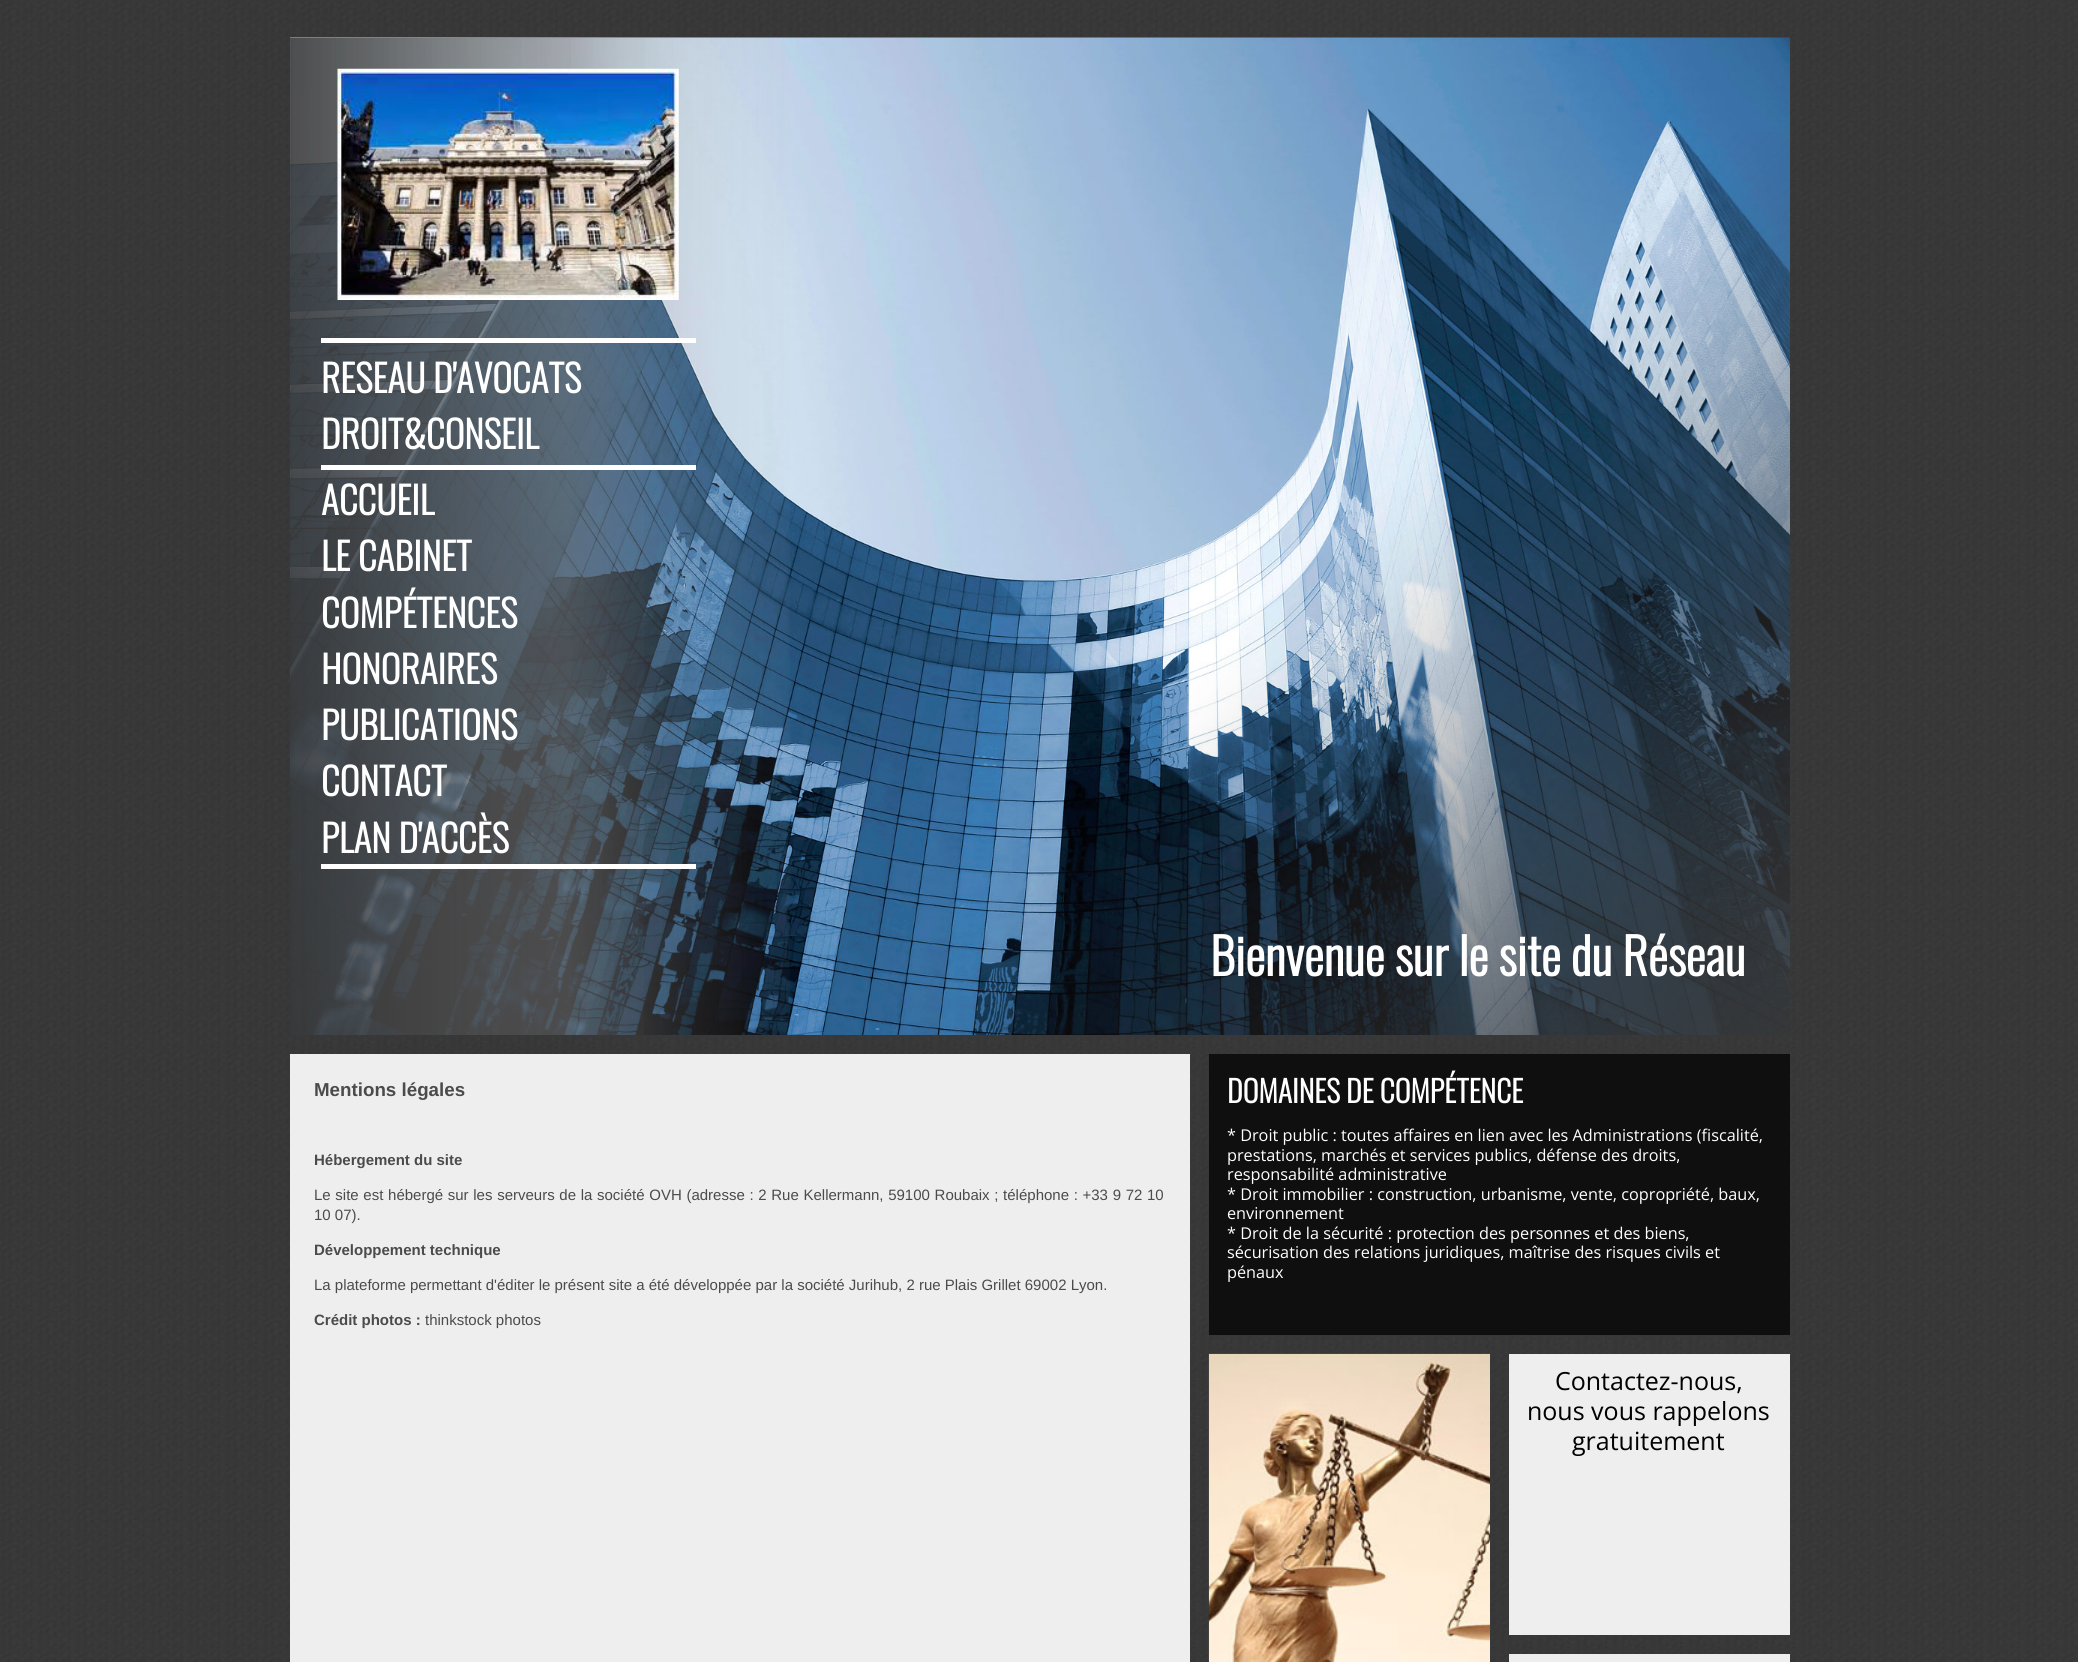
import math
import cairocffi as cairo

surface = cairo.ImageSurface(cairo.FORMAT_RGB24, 2078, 1662)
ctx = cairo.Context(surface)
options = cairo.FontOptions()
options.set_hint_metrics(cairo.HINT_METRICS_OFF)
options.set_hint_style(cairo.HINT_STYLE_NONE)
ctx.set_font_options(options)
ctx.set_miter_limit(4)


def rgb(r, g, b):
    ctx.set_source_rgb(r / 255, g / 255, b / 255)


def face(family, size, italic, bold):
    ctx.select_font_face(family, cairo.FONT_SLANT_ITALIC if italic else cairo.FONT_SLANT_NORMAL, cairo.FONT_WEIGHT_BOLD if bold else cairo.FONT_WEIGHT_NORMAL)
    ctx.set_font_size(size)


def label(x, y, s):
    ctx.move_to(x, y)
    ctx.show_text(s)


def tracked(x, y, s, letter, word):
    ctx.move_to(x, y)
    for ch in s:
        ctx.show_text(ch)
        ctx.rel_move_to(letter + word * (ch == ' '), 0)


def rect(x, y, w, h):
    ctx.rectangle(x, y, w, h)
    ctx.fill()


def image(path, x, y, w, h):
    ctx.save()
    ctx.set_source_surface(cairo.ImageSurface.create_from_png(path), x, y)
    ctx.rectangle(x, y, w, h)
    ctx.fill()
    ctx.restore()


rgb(255, 255, 255)
ctx.paint()
image('image0.png', 0, 0, 2078, 1662)
image('image1.png', 290, 37, 1500, 998)
image('image2.png', 290, 37, 500, 998)
image('image3.png', 337, 68, 342, 232)
image('image4.png', 914, 132, 876, 903)
rgb(255, 255, 255)
rect(321, 338, 375, 5)
rect(321, 465, 375, 5)
face('Oswald', 37.5, 0, 1)
label(321, 393, 'RESEAU D\'AVOCATS')
label(321, 449, 'DROIT&CONSEIL')
rect(321, 864, 375, 5)
label(321, 515, 'ACCUEIL')
label(321, 571, 'LE CABINET')
label(321, 628, 'COMPÉTENCES')
label(321, 684, 'HONORAIRES')
label(321, 740, 'PUBLICATIONS')
label(321, 796, 'CONTACT')
label(321, 853, 'PLAN D\'ACCÈS')
face('Oswald', 50, 0, 1)
label(1210, 976, 'Bienvenue sur le site du Réseau')
rgb(238, 238, 238)
rect(290, 1054, 900, 608)
face('Liberation Sans', 18.75, 0, 1)
rgb(75, 75, 75)
label(314, 1096, 'Mentions légales')
face('Liberation Sans', 15, 0, 1)
label(314, 1165, 'Hébergement du site')
face('Liberation Sans', 15, 0, 0)
tracked(314, 1200, 'Le site est hébergé sur les serveurs de la société OVH (adresse : 2 Rue Kellermann, 59100 Roubaix ; téléphone : +33 9 72 10', 0, 0.5)
label(314, 1220, '10 07).')
face('Liberation Sans', 15, 0, 1)
label(314, 1255, 'Développement technique')
face('Liberation Sans', 15, 0, 0)
label(314, 1290, 'La plateforme permettant d\'éditer le présent site a été développée par la société Jurihub, 2 rue Plais Grillet 69002 Lyon.')
face('Liberation Sans', 15, 0, 1)
label(314, 1325, 'Crédit photos :')
face('Liberation Sans', 15, 0, 0)
label(425, 1325, 'thinkstock photos')
rgb(15, 15, 15)
rect(1209, 1054, 581, 281)
face('Oswald', 30, 0, 1)
rgb(255, 255, 255)
label(1227, 1103, 'DOMAINES DE COMPÉTENCE')
face('Open Sans', 16.25, 0, 0)
label(1227, 1141, '* Droit public : toutes affaires en lien avec les Administrations (fiscalité,')
label(1227, 1161, 'prestations, marchés et services publics, défense des droits,')
label(1227, 1180, 'responsabilité administrative')
label(1227, 1200, '* Droit immobilier : construction, urbanisme, vente, copropriété, baux,')
label(1227, 1219, 'environnement')
label(1227, 1239, '* Droit de la sécurité : protection des personnes et des biens,')
label(1227, 1258, 'sécurisation des relations juridiques, maîtrise des risques civils et')
label(1227, 1278, 'pénaux')
image('image5.png', 1208, 1353, 282, 309)
rgb(238, 238, 238)
rect(1509, 1354, 281, 281)
face('Open Sans', 25, 0, 0)
rgb(0, 0, 0)
label(1555, 1390, 'Contactez-nous,')
label(1527, 1420, 'nous vous rappelons')
label(1572, 1450, 'gratuitement')
rgb(238, 238, 238)
rect(1509, 1654, 281, 8)
surface.write_to_png('render.png')
